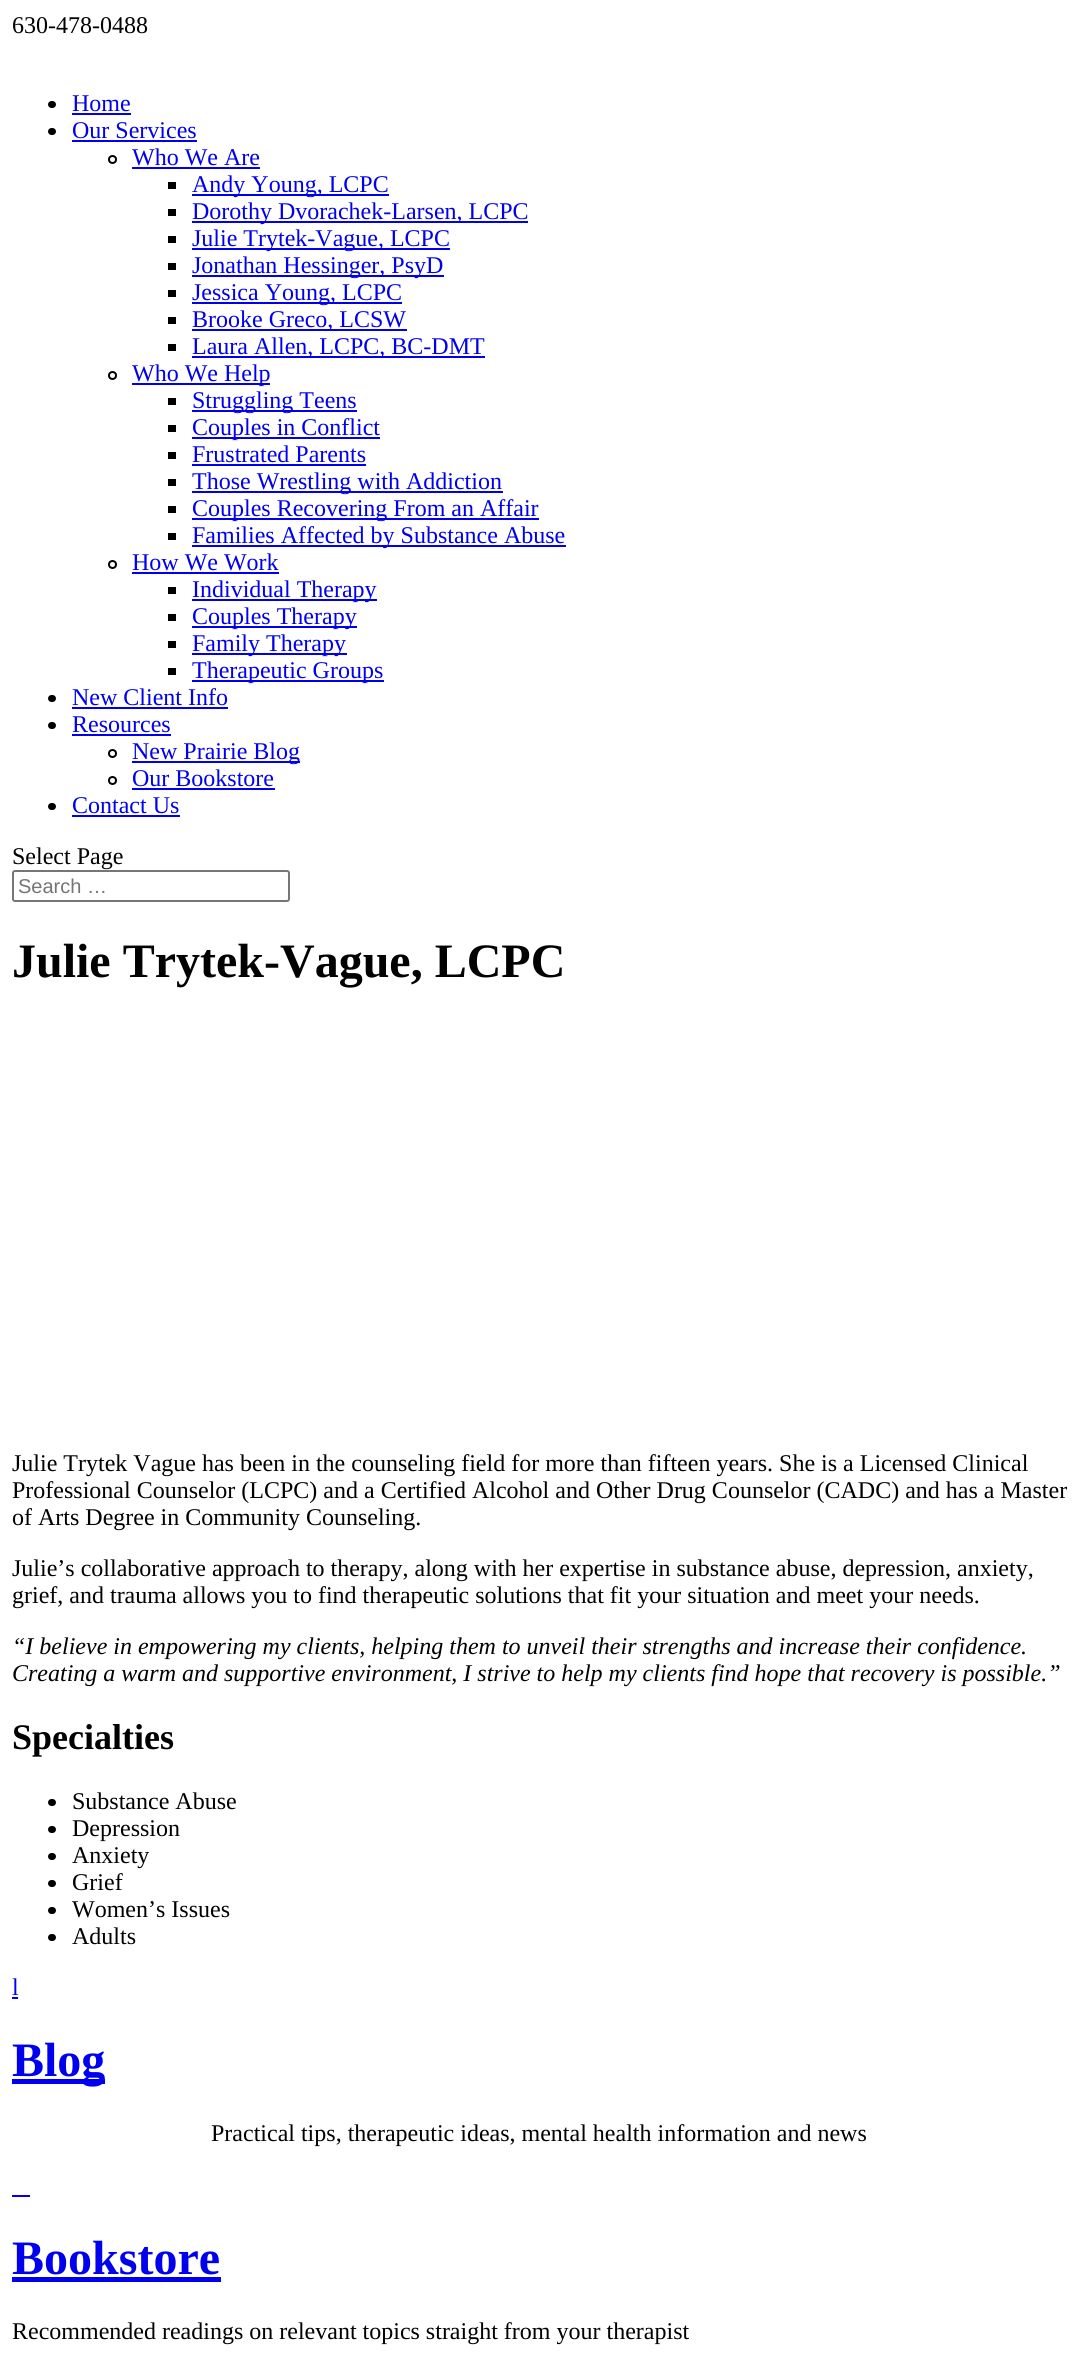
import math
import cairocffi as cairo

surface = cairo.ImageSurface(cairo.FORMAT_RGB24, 1084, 2379)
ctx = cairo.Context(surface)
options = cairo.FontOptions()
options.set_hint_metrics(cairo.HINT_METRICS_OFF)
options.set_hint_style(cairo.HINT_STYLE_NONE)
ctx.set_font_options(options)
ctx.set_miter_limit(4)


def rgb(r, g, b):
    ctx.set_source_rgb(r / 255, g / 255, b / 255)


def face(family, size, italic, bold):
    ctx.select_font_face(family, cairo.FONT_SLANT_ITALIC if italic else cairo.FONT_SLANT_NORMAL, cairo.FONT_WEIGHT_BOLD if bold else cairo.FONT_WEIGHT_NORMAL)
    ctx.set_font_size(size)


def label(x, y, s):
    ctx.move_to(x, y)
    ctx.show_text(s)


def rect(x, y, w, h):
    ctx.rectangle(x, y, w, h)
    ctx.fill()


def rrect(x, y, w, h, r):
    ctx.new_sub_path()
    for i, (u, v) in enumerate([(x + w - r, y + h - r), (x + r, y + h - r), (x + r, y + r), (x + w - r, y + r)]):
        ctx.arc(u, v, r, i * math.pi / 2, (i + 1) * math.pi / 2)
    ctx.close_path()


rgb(255, 255, 255)
ctx.paint()
face('Liberation Serif', 24, 0, 0)
rgb(0, 0, 0)
label(12, 33, '630-478-0488')
rrect(48, 101, 8, 7, 3.5)
ctx.fill()
rgb(0, 0, 238)
label(72, 111, 'Home')
rect(72, 113, 59, 2)
rgb(0, 0, 0)
rrect(48, 128, 8, 7, 3.5)
ctx.fill()
rgb(0, 0, 238)
label(72, 138, 'Our Services')
rect(72, 140, 125, 2)
ctx.new_path()
ctx.arc(112.5, 159.5, 3.5, 0, 2 * math.pi)
rgb(0, 0, 0)
ctx.stroke()
rgb(0, 0, 238)
label(132, 165, 'Who We Are')
rect(132, 167, 128, 2)
rgb(0, 0, 0)
rect(168, 182, 8, 7)
rgb(0, 0, 238)
rect(192, 194, 197, 2)
label(192, 192, 'Andy Young, LCPC')
rgb(0, 0, 0)
rect(168, 209, 8, 7)
rgb(0, 0, 238)
rect(192, 221, 336, 2)
label(192, 219, 'Dorothy Dvorachek-Larsen, LCPC')
rgb(0, 0, 0)
rect(168, 236, 8, 7)
rgb(0, 0, 238)
rect(192, 248, 258, 2)
label(192, 246, 'Julie Trytek-Vague, LCPC')
rgb(0, 0, 0)
rect(168, 263, 8, 7)
rgb(0, 0, 238)
rect(192, 275, 252, 2)
label(192, 273, 'Jonathan Hessinger, PsyD')
rgb(0, 0, 0)
rect(168, 290, 8, 7)
rgb(0, 0, 238)
rect(192, 302, 210, 2)
label(192, 300, 'Jessica Young, LCPC')
rgb(0, 0, 0)
rect(168, 317, 8, 7)
rgb(0, 0, 238)
rect(192, 329, 215, 2)
label(192, 327, 'Brooke Greco, LCSW')
rgb(0, 0, 0)
rect(168, 344, 8, 7)
rgb(0, 0, 238)
rect(192, 356, 293, 2)
label(192, 354, 'Laura Allen, LCPC, BC-DMT')
ctx.new_path()
ctx.arc(112.5, 375.5, 3.5, 0, 2 * math.pi)
rgb(0, 0, 0)
ctx.stroke()
rgb(0, 0, 238)
rect(132, 383, 138, 2)
label(132, 381, 'Who We Help')
rgb(0, 0, 0)
rect(168, 398, 8, 7)
rgb(0, 0, 238)
rect(192, 410, 165, 2)
label(192, 408, 'Struggling Teens')
rgb(0, 0, 0)
rect(168, 425, 8, 7)
rgb(0, 0, 238)
rect(192, 437, 188, 2)
label(192, 435, 'Couples in Conflict')
rgb(0, 0, 0)
rect(168, 452, 8, 7)
rgb(0, 0, 238)
label(192, 462, 'Frustrated Parents')
rect(192, 464, 174, 2)
rgb(0, 0, 0)
rect(168, 479, 8, 7)
rgb(0, 0, 238)
rect(192, 491, 311, 2)
label(192, 489, 'Those Wrestling with Addiction')
rgb(0, 0, 0)
rect(168, 506, 8, 7)
rgb(0, 0, 238)
rect(192, 518, 347, 2)
label(192, 516, 'Couples Recovering From an Affair')
rgb(0, 0, 0)
rect(168, 533, 8, 7)
rgb(0, 0, 238)
rect(192, 545, 374, 2)
label(192, 543, 'Families Affected by Substance Abuse')
ctx.new_path()
ctx.arc(112.5, 564.5, 3.5, 0, 2 * math.pi)
rgb(0, 0, 0)
ctx.stroke()
rgb(0, 0, 238)
label(132, 570, 'How We Work')
rect(132, 572, 147, 2)
rgb(0, 0, 0)
rect(168, 587, 8, 7)
rgb(0, 0, 238)
rect(192, 599, 185, 2)
label(192, 597, 'Individual Therapy')
rgb(0, 0, 0)
rect(168, 614, 8, 7)
rgb(0, 0, 238)
rect(192, 626, 165, 2)
label(192, 624, 'Couples Therapy')
rgb(0, 0, 0)
rect(168, 641, 8, 7)
rgb(0, 0, 238)
rect(192, 653, 155, 2)
label(192, 651, 'Family Therapy')
rgb(0, 0, 0)
rect(168, 668, 8, 7)
rgb(0, 0, 238)
rect(192, 680, 192, 2)
label(192, 678, 'Therapeutic Groups')
rgb(0, 0, 0)
rrect(48, 695, 8, 7, 3.5)
ctx.fill()
rgb(0, 0, 238)
label(72, 705, 'New Client Info')
rect(72, 707, 156, 2)
rgb(0, 0, 0)
rrect(48, 722, 8, 7, 3.5)
ctx.fill()
rgb(0, 0, 238)
label(72, 732, 'Resources')
rect(72, 734, 99, 2)
ctx.new_path()
ctx.arc(112.5, 753.5, 3.5, 0, 2 * math.pi)
rgb(0, 0, 0)
ctx.stroke()
rgb(0, 0, 238)
rect(132, 761, 168, 2)
label(132, 759, 'New Prairie Blog')
ctx.new_path()
ctx.arc(112.5, 780.5, 3.5, 0, 2 * math.pi)
rgb(0, 0, 0)
ctx.stroke()
rgb(0, 0, 238)
label(132, 786, 'Our Bookstore')
rect(132, 788, 143, 2)
rgb(0, 0, 0)
rrect(48, 803, 8, 7, 3.5)
ctx.fill()
rgb(0, 0, 238)
label(72, 813, 'Contact Us')
rect(72, 815, 108, 2)
rgb(0, 0, 0)
label(12, 864, 'Select Page')
rrect(13, 871, 276, 30, 2)
rgb(118, 118, 118)
ctx.stroke()
face('Liberation Sans', 20, 0, 0)
rgb(117, 117, 117)
label(18, 893, 'Search …')
face('Liberation Serif', 48, 0, 1)
rgb(0, 0, 0)
label(12, 977, 'Julie Trytek-Vague, LCPC')
face('Liberation Serif', 24, 0, 0)
label(12, 1471, 'Julie Trytek Vague has been in the counseling field for more than fifteen years. She is a Licensed Clinical')
label(12, 1498, 'Professional Counselor (LCPC) and a Certified Alcohol and Other Drug Counselor (CADC) and has a Master')
label(12, 1525, 'of Arts Degree in Community Counseling.')
label(12, 1576, 'Julie’s collaborative approach to therapy, along with her expertise in substance abuse, depression, anxiety,')
label(12, 1603, 'grief, and trauma allows you to find therapeutic solutions that fit your situation and meet your needs.')
face('Liberation Serif', 24, 1, 0)
label(12, 1654, '“I believe in empowering my clients, helping them to unveil their strengths and increase their confidence.')
label(12, 1681, 'Creating a warm and supportive environment, I strive to help my clients find hope that recovery is possible.”')
face('Liberation Serif', 36, 0, 1)
label(12, 1749, 'Specialties')
rrect(48, 1799, 8, 7, 3.5)
ctx.fill()
face('Liberation Serif', 24, 0, 0)
label(72, 1809, 'Substance Abuse')
rrect(48, 1826, 8, 7, 3.5)
ctx.fill()
label(72, 1836, 'Depression')
rrect(48, 1853, 8, 7, 3.5)
ctx.fill()
label(72, 1863, 'Anxiety')
rrect(48, 1880, 8, 7, 3.5)
ctx.fill()
label(72, 1890, 'Grief')
rrect(48, 1907, 8, 7, 3.5)
ctx.fill()
label(72, 1917, 'Women’s Issues')
rrect(48, 1934, 8, 7, 3.5)
ctx.fill()
label(72, 1944, 'Adults')
rgb(0, 0, 238)
label(12, 1995, 'l')
rect(12, 1997, 6, 2)
rect(12, 2079, 93, 5)
face('Liberation Serif', 48, 0, 1)
label(12, 2076, 'Blog')
face('Liberation Serif', 24, 0, 0)
rgb(0, 0, 0)
label(211, 2141, 'Practical tips, therapeutic ideas, mental health information and news')
rgb(0, 0, 238)
rect(12, 2195, 18, 2)
face('Liberation Serif', 48, 0, 1)
label(12, 2274, 'Bookstore')
rect(12, 2277, 209, 5)
face('Liberation Serif', 24, 0, 0)
rgb(0, 0, 0)
label(12, 2339, 'Recommended readings on relevant topics straight from your therapist')
surface.write_to_png('render.png')
